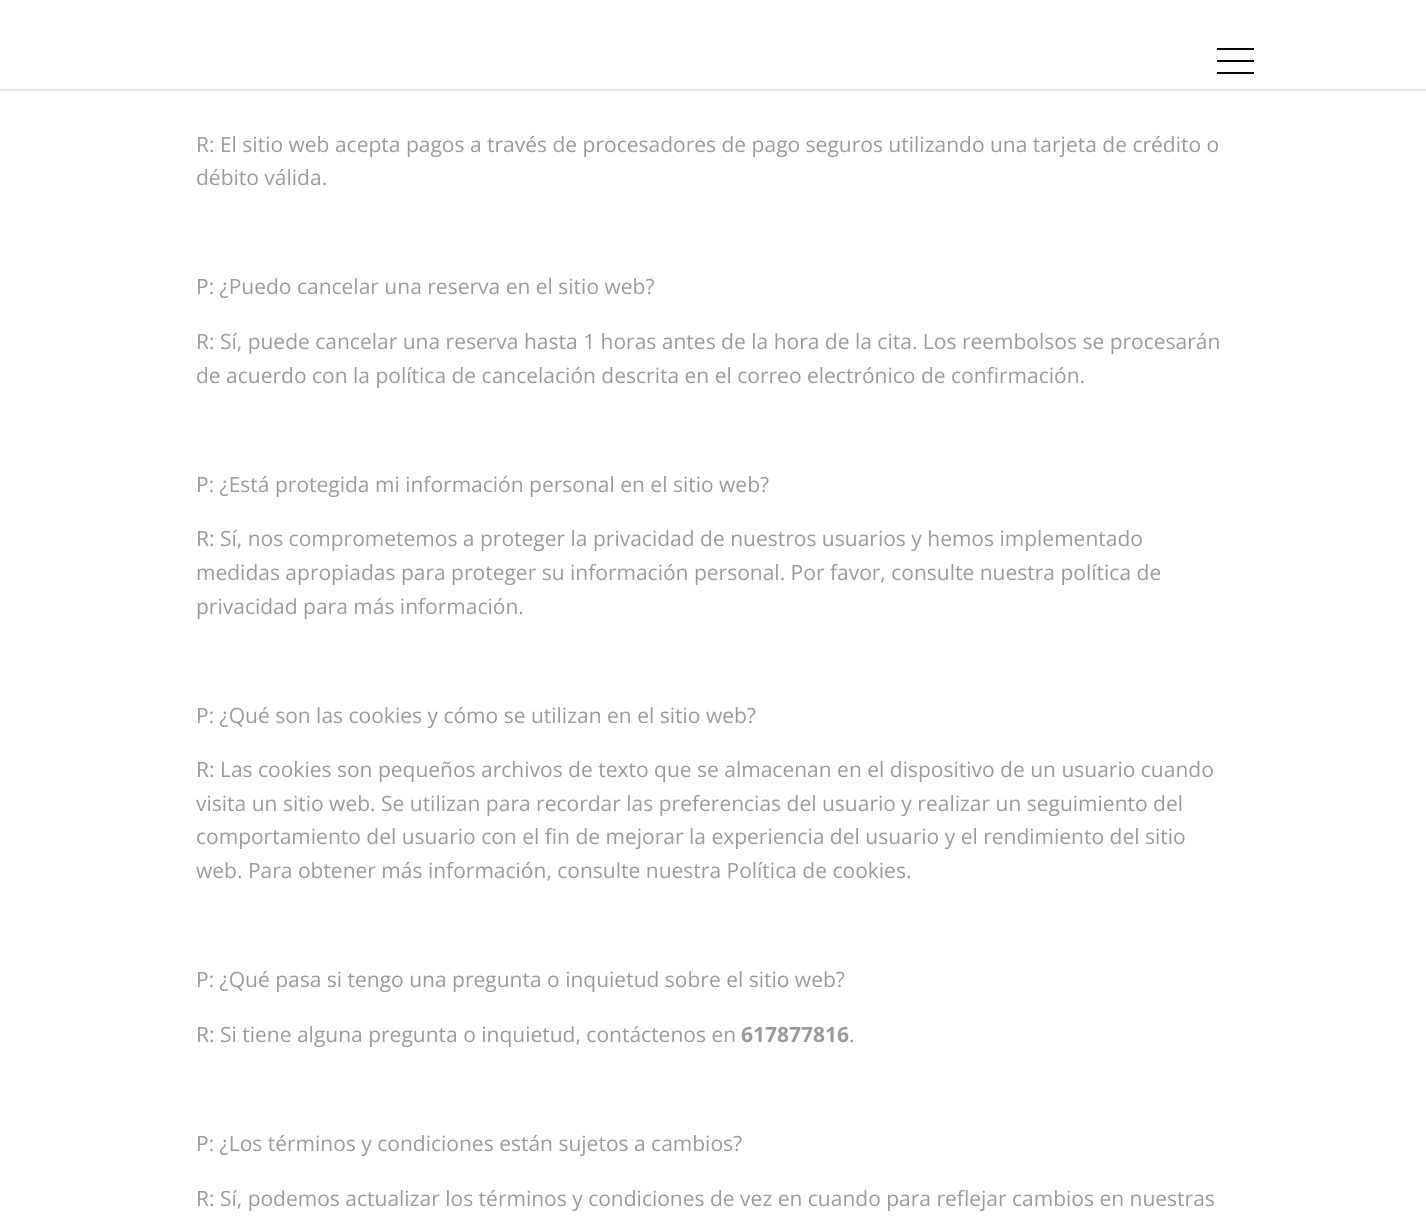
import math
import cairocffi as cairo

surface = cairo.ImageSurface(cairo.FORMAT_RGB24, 1426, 1229)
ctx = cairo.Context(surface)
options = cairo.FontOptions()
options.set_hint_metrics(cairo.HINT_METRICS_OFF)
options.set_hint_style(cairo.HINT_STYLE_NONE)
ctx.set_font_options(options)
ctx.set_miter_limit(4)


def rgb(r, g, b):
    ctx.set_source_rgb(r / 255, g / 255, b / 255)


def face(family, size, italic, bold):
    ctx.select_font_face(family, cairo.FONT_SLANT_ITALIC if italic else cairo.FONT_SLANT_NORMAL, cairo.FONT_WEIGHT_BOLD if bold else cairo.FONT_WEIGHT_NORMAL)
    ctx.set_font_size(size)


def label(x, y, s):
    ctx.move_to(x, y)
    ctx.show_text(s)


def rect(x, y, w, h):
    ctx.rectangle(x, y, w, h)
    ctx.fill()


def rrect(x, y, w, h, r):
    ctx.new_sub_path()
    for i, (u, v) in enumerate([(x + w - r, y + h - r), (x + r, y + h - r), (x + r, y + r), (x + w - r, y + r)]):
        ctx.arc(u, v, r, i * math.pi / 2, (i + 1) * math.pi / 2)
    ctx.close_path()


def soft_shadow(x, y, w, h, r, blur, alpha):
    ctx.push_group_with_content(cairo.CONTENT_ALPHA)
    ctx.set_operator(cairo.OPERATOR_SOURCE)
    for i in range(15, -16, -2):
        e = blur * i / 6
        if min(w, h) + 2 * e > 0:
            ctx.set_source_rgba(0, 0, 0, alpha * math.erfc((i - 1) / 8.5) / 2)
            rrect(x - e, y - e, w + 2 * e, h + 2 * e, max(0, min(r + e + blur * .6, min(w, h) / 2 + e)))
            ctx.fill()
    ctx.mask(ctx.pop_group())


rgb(255, 255, 255)
ctx.paint()
rgb(181, 181, 181)
soft_shadow(0, 0, 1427, 89, 0, 2, 1)
rgb(255, 255, 255)
rect(0, 0, 1426, 89)
rgb(0, 0, 0)
rect(1217, 48, 37, 2)
rect(1217, 60, 37, 2)
rect(1217, 72, 37, 2)
face('Open Sans', 21, 0, 0)
rgb(153, 153, 153)
label(196, 152, 'R: El sitio web acepta pagos a través de procesadores de pago seguros utilizando una tarjeta de crédito o')
label(196, 185, 'débito válida.')
label(196, 294, 'P: ¿Puedo cancelar una reserva en el sitio web?')
label(196, 349, 'R: Sí, puede cancelar una reserva hasta 1 horas antes de la hora de la cita. Los reembolsos se procesarán')
label(196, 383, 'de acuerdo con la política de cancelación descrita en el correo electrónico de confirmación.')
label(196, 492, 'P: ¿Está protegida mi información personal en el sitio web?')
label(196, 546, 'R: Sí, nos comprometemos a proteger la privacidad de nuestros usuarios y hemos implementado')
label(196, 580, 'medidas apropiadas para proteger su información personal. Por favor, consulte nuestra política de')
label(196, 614, 'privacidad para más información.')
label(196, 723, 'P: ¿Qué son las cookies y cómo se utilizan en el sitio web?')
label(196, 777, 'R: Las cookies son pequeños archivos de texto que se almacenan en el dispositivo de un usuario cuando')
label(196, 811, 'visita un sitio web. Se utilizan para recordar las preferencias del usuario y realizar un seguimiento del')
label(196, 844, 'comportamiento del usuario con el fin de mejorar la experiencia del usuario y el rendimiento del sitio')
label(196, 878, 'web. Para obtener más información, consulte nuestra Política de cookies.')
label(196, 987, 'P: ¿Qué pasa si tengo una pregunta o inquietud sobre el sitio web?')
label(196, 1042, 'R: Si tiene alguna pregunta o inquietud, contáctenos en')
face('Open Sans', 21, 0, 1)
label(741, 1042, '617877816')
face('Open Sans', 21, 0, 0)
label(849, 1042, '.')
label(196, 1151, 'P: ¿Los términos y condiciones están sujetos a cambios?')
label(196, 1206, 'R: Sí, podemos actualizar los términos y condiciones de vez en cuando para reflejar cambios en nuestras')
surface.write_to_png('render.png')
